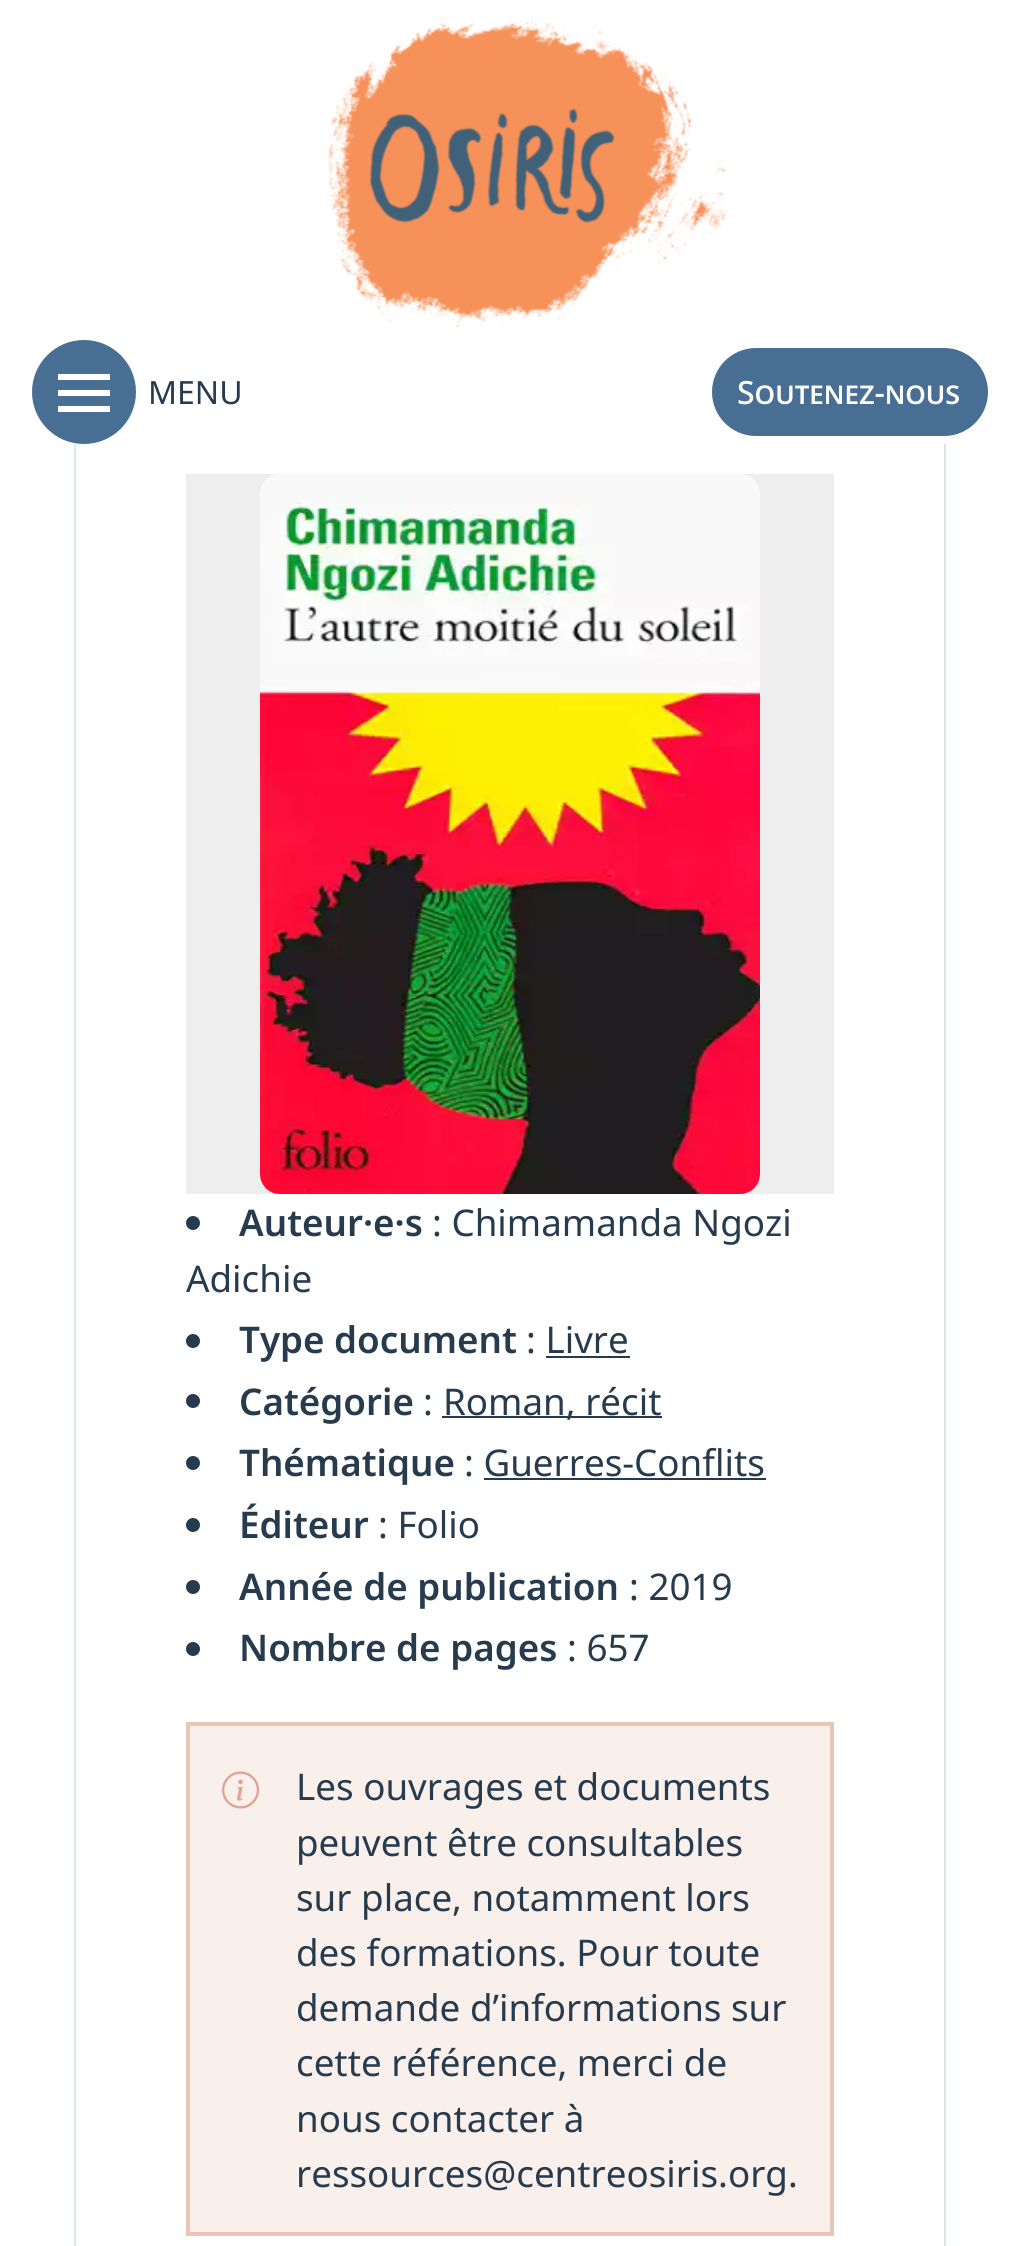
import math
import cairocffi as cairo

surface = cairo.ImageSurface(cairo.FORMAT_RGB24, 1019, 2246)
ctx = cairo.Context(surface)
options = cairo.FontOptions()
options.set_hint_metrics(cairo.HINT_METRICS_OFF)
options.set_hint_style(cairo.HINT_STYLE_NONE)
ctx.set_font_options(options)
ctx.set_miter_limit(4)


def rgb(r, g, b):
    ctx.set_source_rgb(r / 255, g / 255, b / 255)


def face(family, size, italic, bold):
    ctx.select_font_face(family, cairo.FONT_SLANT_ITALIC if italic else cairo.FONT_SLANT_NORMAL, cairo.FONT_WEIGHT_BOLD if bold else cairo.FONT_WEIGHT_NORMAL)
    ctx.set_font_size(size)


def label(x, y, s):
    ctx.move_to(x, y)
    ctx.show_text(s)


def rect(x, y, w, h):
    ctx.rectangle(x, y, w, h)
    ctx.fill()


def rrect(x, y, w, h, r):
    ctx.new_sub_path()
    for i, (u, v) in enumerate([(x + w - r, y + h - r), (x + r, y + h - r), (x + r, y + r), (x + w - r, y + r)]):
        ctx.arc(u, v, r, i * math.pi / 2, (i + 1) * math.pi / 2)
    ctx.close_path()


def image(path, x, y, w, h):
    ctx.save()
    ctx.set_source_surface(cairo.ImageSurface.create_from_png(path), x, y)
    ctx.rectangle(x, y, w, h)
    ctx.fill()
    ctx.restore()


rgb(255, 255, 255)
ctx.paint()
ctx.rectangle(75, 99, 870, 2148)
rgb(221, 230, 238)
ctx.stroke()
rgb(255, 255, 255)
rect(74, 98, 872, 346)
image('image0.png', 326, 16, 400, 324)
rgb(72, 111, 147)
ctx.arc(84, 392, 52, 0, 2 * math.pi)
ctx.fill()
rgb(255, 255, 255)
rect(58, 406, 52, 6)
rect(58, 374, 52, 6)
rect(58, 390, 52, 6)
face('Noto Sans', 32, 0, 0)
rgb(39, 59, 79)
label(148, 404, 'MENU')
rgb(72, 111, 147)
rrect(712, 348, 276, 88, 44)
ctx.fill()
face('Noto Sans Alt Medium', 32, 0, 0)
rgb(255, 255, 255)
label(737, 404, 'Soutenez-nous')
rgb(238, 238, 238)
rect(186, 474, 648, 720)
image('image1.png', 260, 474, 500, 720)
rgb(39, 59, 79)
ctx.arc(193, 1223, 7, 0, 2 * math.pi)
ctx.fill()
face('Noto Sans SemiBold', 36.75, 0, 0)
label(239, 1236, 'Auteur·e·s')
face('Noto Sans', 36.75, 0, 0)
label(432, 1236, ': Chimamanda Ngozi')
label(186, 1292, 'Adichie')
ctx.new_path()
ctx.arc(193, 1341, 7, 0, 2 * math.pi)
ctx.fill()
face('Noto Sans SemiBold', 36.75, 0, 0)
label(239, 1353, 'Type document')
face('Noto Sans', 36.75, 0, 0)
label(526, 1353, ': Livre')
rect(546, 1356, 84, 2)
ctx.new_path()
ctx.arc(193, 1401, 7, 0, 2 * math.pi)
ctx.fill()
face('Noto Sans SemiBold', 36.75, 0, 0)
label(239, 1415, 'Catégorie')
face('Noto Sans', 36.75, 0, 0)
label(423, 1415, ':')
rect(442, 1416, 220, 2)
label(443, 1415, 'Roman, récit')
ctx.new_path()
ctx.arc(193, 1463, 7, 0, 2 * math.pi)
ctx.fill()
face('Noto Sans SemiBold', 36.75, 0, 0)
label(239, 1476, 'Thématique')
face('Noto Sans', 36.75, 0, 0)
label(464, 1476, ': Guerres-Conflits')
rect(484, 1478, 282, 2)
ctx.new_path()
ctx.arc(193, 1525, 7, 0, 2 * math.pi)
ctx.fill()
face('Noto Sans SemiBold', 36.75, 0, 0)
label(239, 1538, 'Éditeur')
face('Noto Sans', 36.75, 0, 0)
label(378, 1538, ': Folio')
ctx.new_path()
ctx.arc(193, 1587, 7, 0, 2 * math.pi)
ctx.fill()
face('Noto Sans SemiBold', 36.75, 0, 0)
label(239, 1600, 'Année de publication')
face('Noto Sans', 36.75, 0, 0)
label(629, 1600, ': 2019')
ctx.new_path()
ctx.arc(193, 1649, 7, 0, 2 * math.pi)
ctx.fill()
face('Noto Sans SemiBold', 36.75, 0, 0)
label(239, 1661, 'Nombre de pages')
face('Noto Sans', 36.75, 0, 0)
label(567, 1661, ': 657')
rgb(250, 240, 235)
ctx.rectangle(188, 1724, 644, 510)
ctx.fill_preserve()
rgb(234, 197, 179)
ctx.set_line_width(4)
ctx.stroke()
image('image2.png', 222, 1771, 38, 38)
rgb(39, 59, 79)
label(296, 1800, 'Les ouvrages et documents')
label(296, 1856, 'peuvent être consultables')
label(296, 1911, 'sur place, notamment lors')
label(296, 1966, 'des formations. Pour toute')
label(296, 2021, 'demande d’informations sur')
label(296, 2076, 'cette référence, merci de')
label(296, 2132, 'nous contacter à')
label(296, 2187, 'ressources@centreosiris.org.')
surface.write_to_png('render.png')
